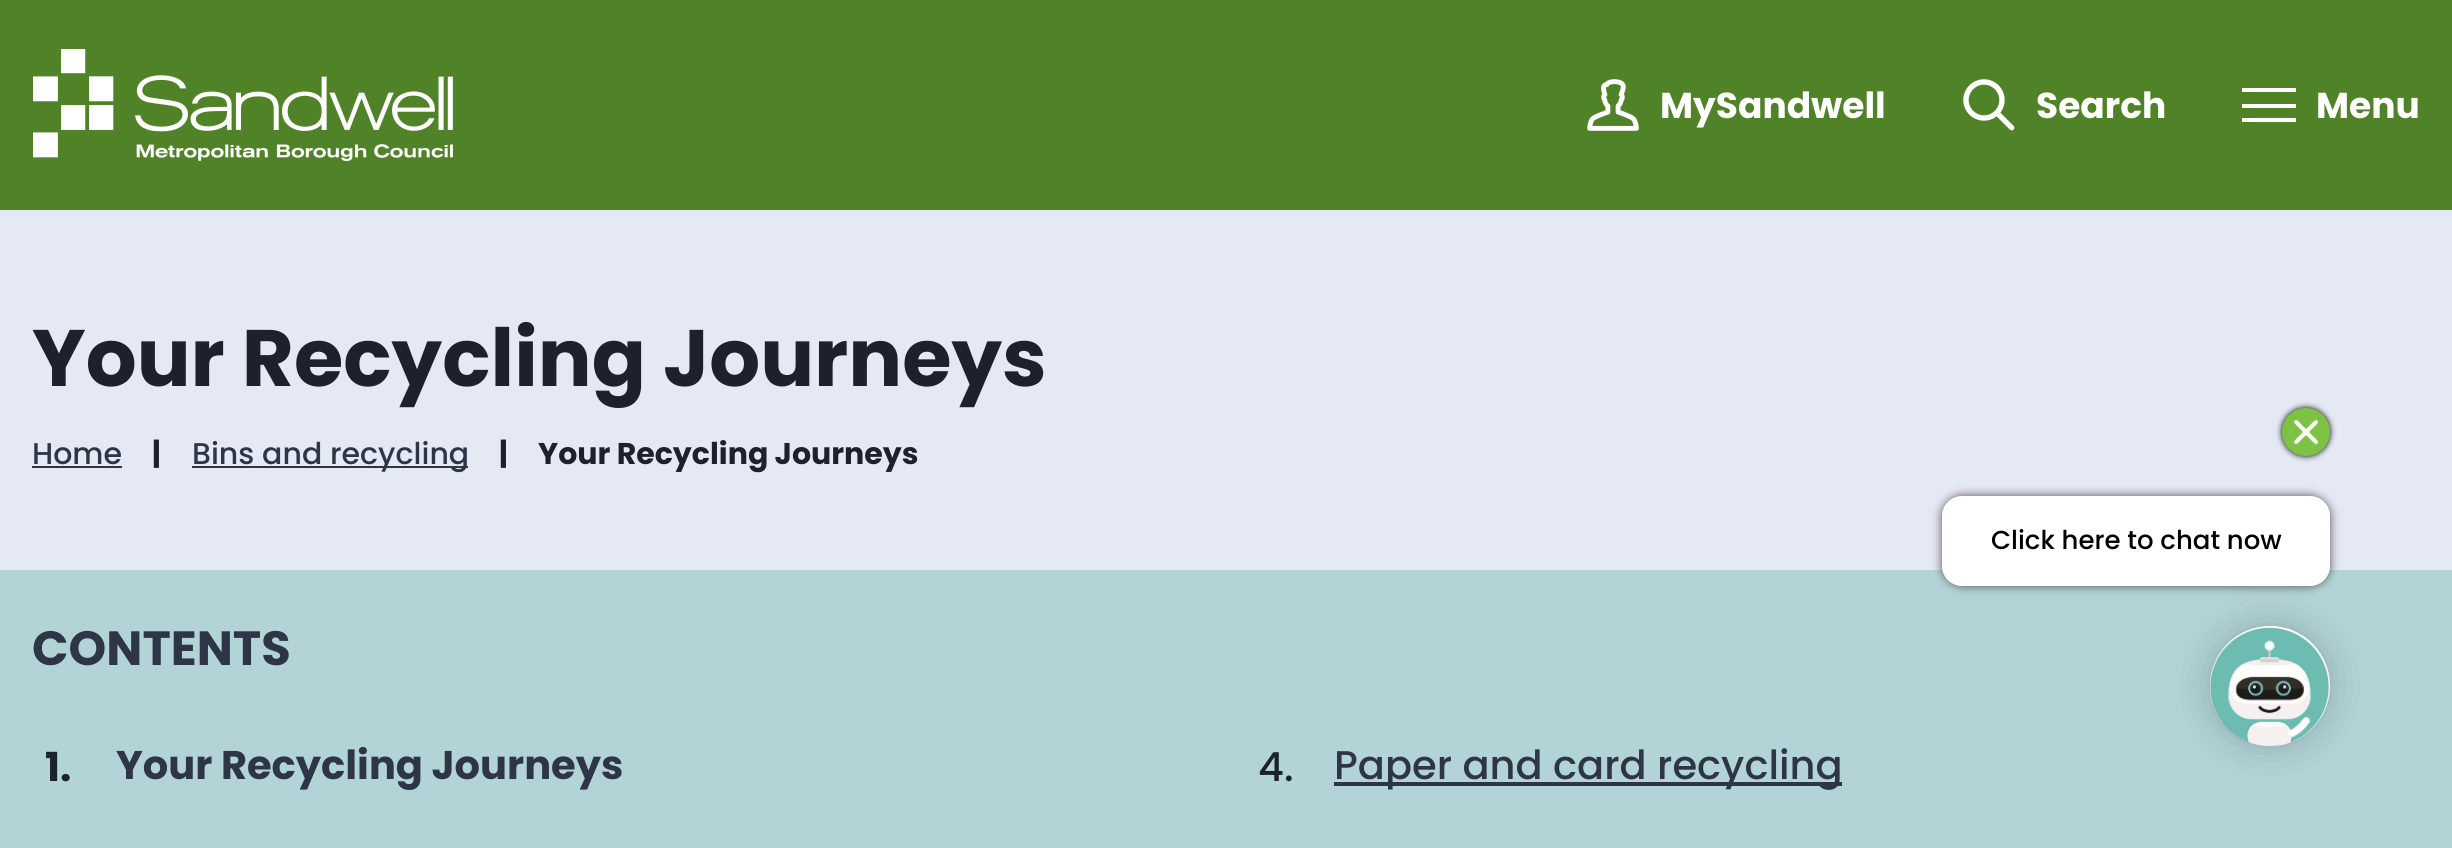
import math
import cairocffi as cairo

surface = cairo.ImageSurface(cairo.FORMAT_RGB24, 2452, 848)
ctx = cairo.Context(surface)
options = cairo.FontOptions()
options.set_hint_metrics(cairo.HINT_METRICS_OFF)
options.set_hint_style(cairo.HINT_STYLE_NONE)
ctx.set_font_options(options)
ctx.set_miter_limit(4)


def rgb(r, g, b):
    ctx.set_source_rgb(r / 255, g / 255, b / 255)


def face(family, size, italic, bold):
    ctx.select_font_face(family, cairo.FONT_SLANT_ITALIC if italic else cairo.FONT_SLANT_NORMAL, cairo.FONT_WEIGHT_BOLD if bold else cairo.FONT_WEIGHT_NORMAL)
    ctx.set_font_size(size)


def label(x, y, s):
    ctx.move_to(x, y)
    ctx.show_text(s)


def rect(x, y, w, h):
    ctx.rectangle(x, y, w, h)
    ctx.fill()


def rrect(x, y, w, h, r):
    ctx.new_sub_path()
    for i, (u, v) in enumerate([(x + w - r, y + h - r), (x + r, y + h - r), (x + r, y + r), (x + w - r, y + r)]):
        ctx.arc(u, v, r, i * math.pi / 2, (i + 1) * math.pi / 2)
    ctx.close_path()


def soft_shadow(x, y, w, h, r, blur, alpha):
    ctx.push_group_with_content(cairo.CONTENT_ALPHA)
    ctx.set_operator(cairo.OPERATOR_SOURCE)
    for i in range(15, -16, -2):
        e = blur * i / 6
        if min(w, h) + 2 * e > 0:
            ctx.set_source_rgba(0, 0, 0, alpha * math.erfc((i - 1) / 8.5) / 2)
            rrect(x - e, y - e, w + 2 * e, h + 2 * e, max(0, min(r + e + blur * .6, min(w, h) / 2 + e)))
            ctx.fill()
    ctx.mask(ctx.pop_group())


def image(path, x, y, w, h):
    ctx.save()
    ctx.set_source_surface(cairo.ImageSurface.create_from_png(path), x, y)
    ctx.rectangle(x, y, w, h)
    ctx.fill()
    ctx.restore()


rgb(179, 212, 215)
ctx.paint()
rgb(80, 131, 40)
rect(0, 0, 2452, 210)
image('image0.png', 33, 49, 420, 112)
image('image1.png', 1587, 79, 52, 52)
face('Poppins', 36, 0, 1)
rgb(255, 255, 255)
label(1660, 118, 'MySandwell')
image('image2.png', 1963, 79, 52, 52)
label(2036, 118, 'Search')
rect(2242, 88, 54, 4)
rect(2242, 104, 54, 4)
rect(2242, 118, 54, 4)
label(2316, 118, 'Menu')
rgb(228, 233, 244)
rect(0, 210, 2452, 360)
face('Poppins', 80, 0, 1)
rgb(28, 33, 44)
label(32, 386, 'Your Recycling Journeys')
face('Poppins Medium', 30, 0, 0)
rgb(45, 53, 71)
label(32, 464, 'Home')
rect(32, 466, 90, 2)
face('Poppins', 30, 0, 1)
rgb(28, 33, 44)
label(152, 464, '|')
rgb(45, 53, 71)
rect(192, 466, 276, 2)
face('Poppins Medium', 30, 0, 0)
label(192, 464, 'Bins and recycling')
face('Poppins', 30, 0, 1)
rgb(28, 33, 44)
label(499, 464, '|')
label(538, 464, 'Your Recycling Journeys')
face('Poppins', 48, 0, 1)
rgb(45, 53, 71)
label(32, 665, 'CONTENTS')
face('Poppins', 40, 0, 1)
rgb(28, 33, 44)
label(45, 781, '1.')
rgb(45, 53, 71)
label(116, 779, 'Your Recycling Journeys')
face('Poppins Medium', 40, 0, 0)
rgb(28, 33, 44)
label(1258, 781, '4.')
rgb(45, 53, 71)
rect(1334, 782, 508, 4)
label(1334, 779, 'Paper and card recycling')
rgb(0, 0, 0)
soft_shadow(2282, 408, 48, 48, 24, 3, 1)
rgb(125, 194, 66)
ctx.arc(2306, 432, 24, 0, 2 * math.pi)
ctx.fill()
image('image3.png', 2294, 420, 24, 24)
rgb(84, 80, 80)
soft_shadow(1942, 496, 388, 90, 20, 5, 1)
rgb(255, 255, 255)
rrect(1942, 496, 388, 90, 20)
ctx.fill()
face('Poppins Medium', 26, 0, 0)
rgb(0, 0, 0)
label(1991, 549, 'Click here to chat now')
rgb(0, 0, 0)
soft_shadow(2210, 626, 120, 120, 60, 20, 0.2)
image('image4.png', 2210, 626, 120, 120)
surface.write_to_png('render.png')
